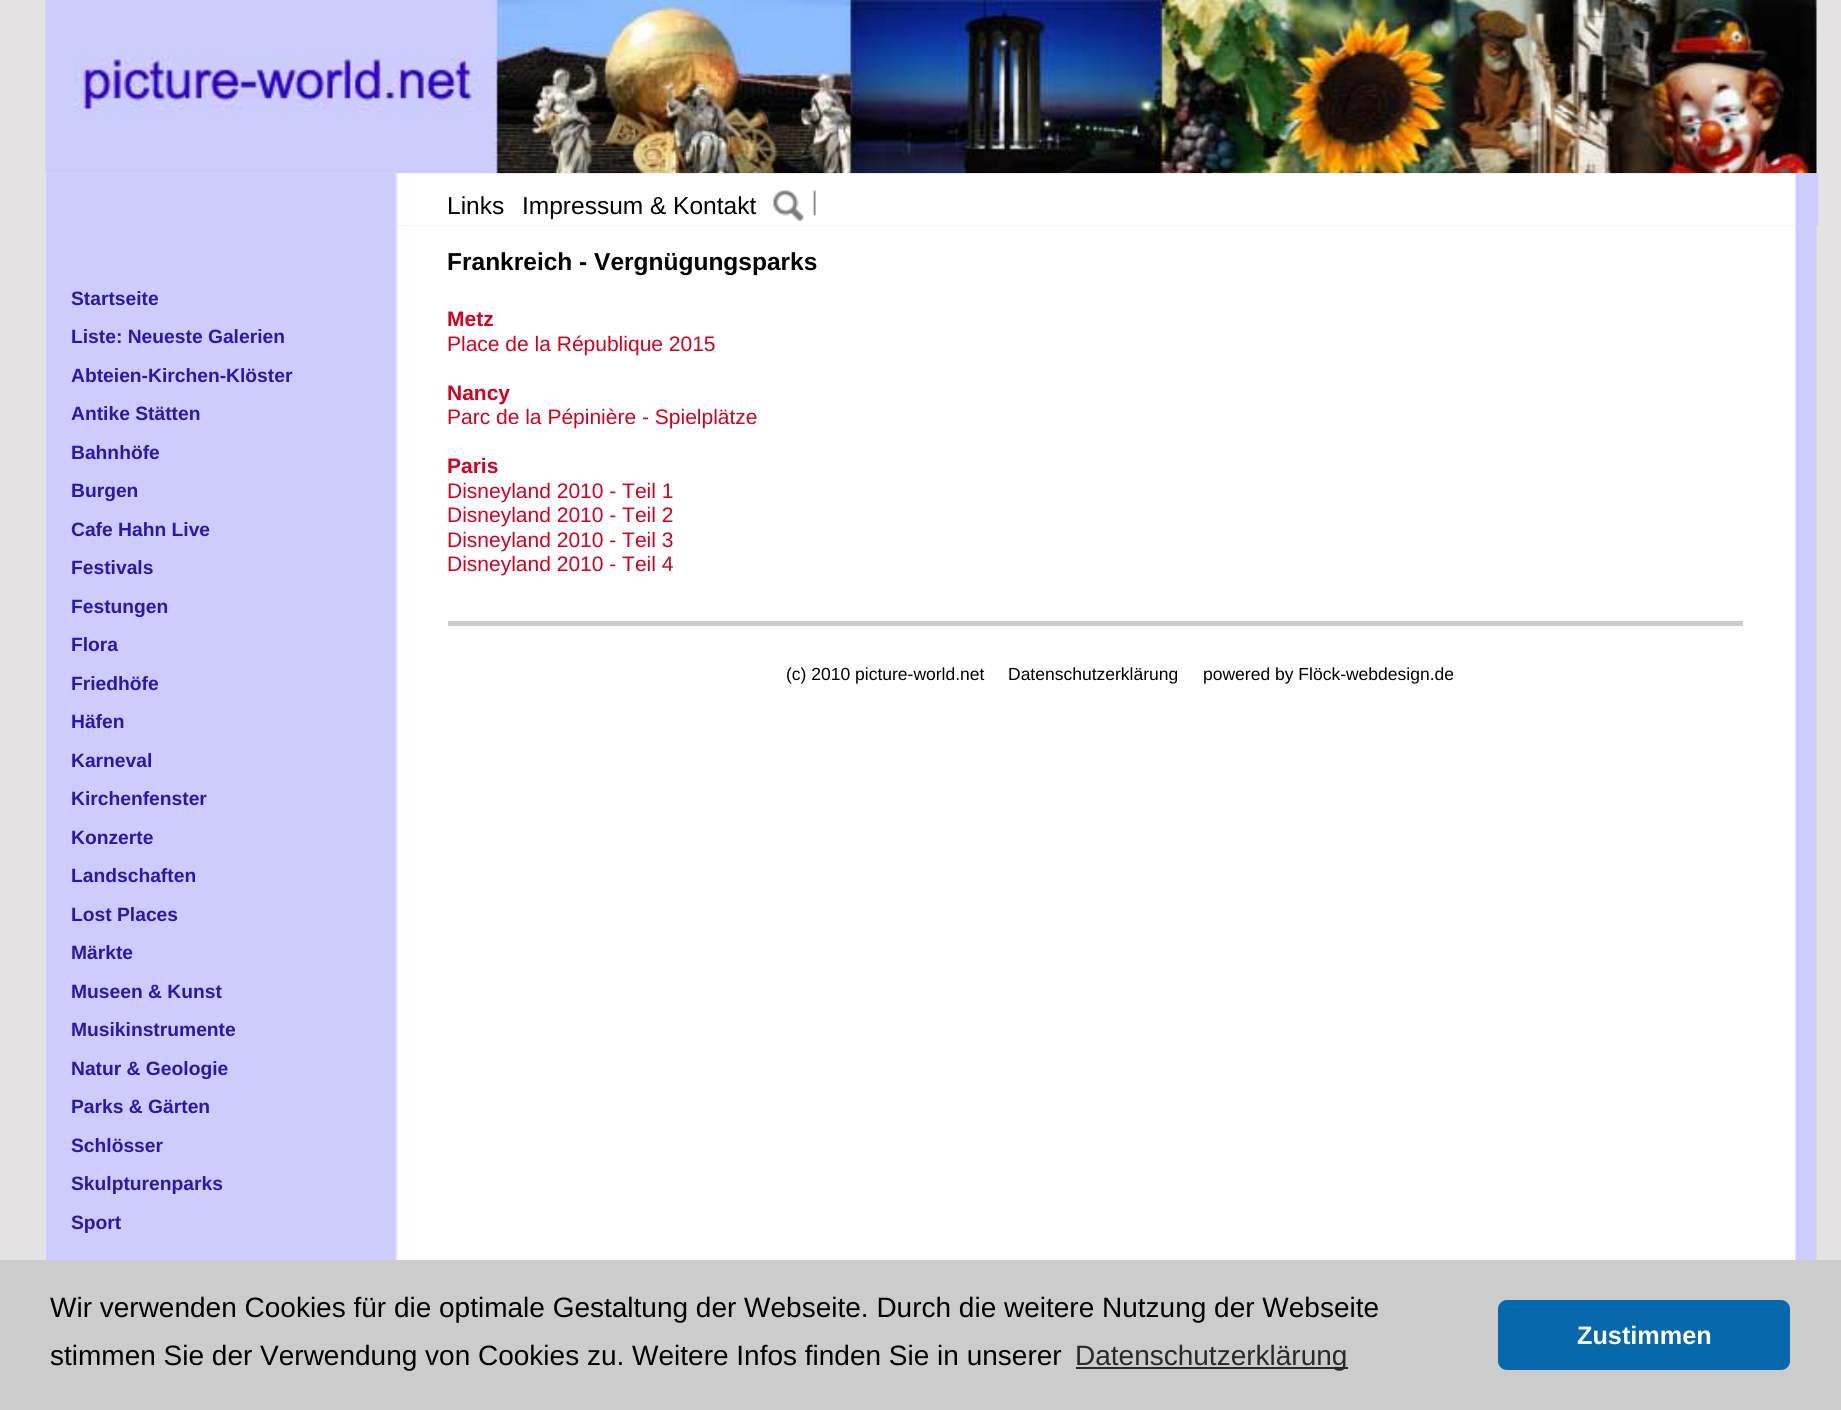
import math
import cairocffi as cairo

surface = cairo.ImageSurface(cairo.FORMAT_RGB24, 1841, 1410)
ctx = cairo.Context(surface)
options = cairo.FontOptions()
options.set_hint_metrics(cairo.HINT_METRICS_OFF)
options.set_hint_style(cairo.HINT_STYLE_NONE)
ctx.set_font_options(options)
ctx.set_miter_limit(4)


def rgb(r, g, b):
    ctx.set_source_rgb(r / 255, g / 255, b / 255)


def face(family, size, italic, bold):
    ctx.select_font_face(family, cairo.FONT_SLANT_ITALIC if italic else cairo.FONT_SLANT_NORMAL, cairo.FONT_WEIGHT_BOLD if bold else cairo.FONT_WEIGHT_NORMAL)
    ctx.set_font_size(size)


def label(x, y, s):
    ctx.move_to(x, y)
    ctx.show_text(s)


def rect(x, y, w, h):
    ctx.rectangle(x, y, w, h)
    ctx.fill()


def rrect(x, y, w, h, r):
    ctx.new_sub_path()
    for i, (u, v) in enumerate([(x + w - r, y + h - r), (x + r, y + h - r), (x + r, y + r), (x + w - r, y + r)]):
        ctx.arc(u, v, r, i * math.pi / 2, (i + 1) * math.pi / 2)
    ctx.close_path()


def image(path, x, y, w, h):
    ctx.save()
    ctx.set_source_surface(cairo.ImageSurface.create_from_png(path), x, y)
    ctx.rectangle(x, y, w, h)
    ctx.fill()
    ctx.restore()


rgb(228, 226, 226)
ctx.paint()
image('image0.png', 45, 0, 1772, 174)
image('image1.png', 45, 173, 1774, 53)
face('Liberation Sans', 24.5, 0, 0)
rgb(0, 0, 0)
label(447, 214, 'Links')
label(522, 214, 'Impressum & Kontakt')
image('image2.png', 773, 190, 43, 31)
image('image3.png', 45, 226, 1772, 1034)
face('Liberation Sans', 19.25, 0, 1)
rgb(46, 22, 171)
label(71, 305, 'Startseite')
label(71, 343, 'Liste: Neueste Galerien')
label(71, 382, 'Abteien-Kirchen-Klöster')
label(71, 420, 'Antike Stätten')
label(71, 459, 'Bahnhöfe')
label(71, 497, 'Burgen')
label(71, 536, 'Cafe Hahn Live')
label(71, 574, 'Festivals')
label(71, 613, 'Festungen')
label(71, 651, 'Flora')
label(71, 690, 'Friedhöfe')
label(71, 728, 'Häfen')
label(71, 767, 'Karneval')
label(71, 805, 'Kirchenfenster')
label(71, 844, 'Konzerte')
label(71, 882, 'Landschaften')
label(71, 921, 'Lost Places')
label(71, 959, 'Märkte')
label(71, 998, 'Museen & Kunst')
label(71, 1036, 'Musikinstrumente')
label(71, 1075, 'Natur & Geologie')
label(71, 1113, 'Parks & Gärten')
label(71, 1152, 'Schlösser')
label(71, 1190, 'Skulpturenparks')
label(71, 1229, 'Sport')
face('Liberation Sans', 24.5, 0, 1)
rgb(0, 0, 0)
label(447, 270, 'Frankreich - Vergnügungsparks')
face('Liberation Sans', 21, 0, 1)
rgb(212, 0, 32)
label(447, 326, 'Metz')
face('Liberation Sans', 21, 0, 0)
label(447, 351, 'Place de la République 2015')
face('Liberation Sans', 21, 0, 1)
label(447, 400, 'Nancy')
face('Liberation Sans', 21, 0, 0)
label(447, 424, 'Parc de la Pépinière - Spielplätze')
face('Liberation Sans', 21, 0, 1)
label(447, 473, 'Paris')
face('Liberation Sans', 21, 0, 0)
label(447, 498, 'Disneyland 2010 - Teil 1')
label(447, 522, 'Disneyland 2010 - Teil 2')
label(447, 547, 'Disneyland 2010 - Teil 3')
label(447, 571, 'Disneyland 2010 - Teil 4')
rgb(204, 204, 204)
rect(448, 621, 1295, 5)
face('Liberation Sans', 17.5, 0, 0)
rgb(0, 0, 0)
label(786, 680, '(c) 2010 picture-world.net')
label(1008, 680, 'Datenschutzerklärung')
label(1203, 680, 'powered by Flöck-webdesign.de')
rgb(204, 204, 204)
rect(0, 1260, 1841, 150)
face('Liberation Sans', 28, 0, 0)
rgb(0, 0, 0)
label(50, 1317, 'Wir verwenden Cookies für die optimale Gestaltung der Webseite. Durch die weitere Nutzung der Webseite')
label(50, 1365, 'stimmen Sie der Verwendung von Cookies zu. Weitere Infos finden Sie in unserer')
rgb(41, 41, 41)
rect(1076, 1367, 272, 2)
label(1075, 1365, 'Datenschutzerklärung')
rgb(7, 104, 173)
rrect(1498, 1300, 292, 70, 9)
ctx.fill()
face('Liberation Sans', 25.25, 0, 1)
rgb(255, 255, 255)
label(1577, 1344, 'Zustimmen')
surface.write_to_png('render.png')
